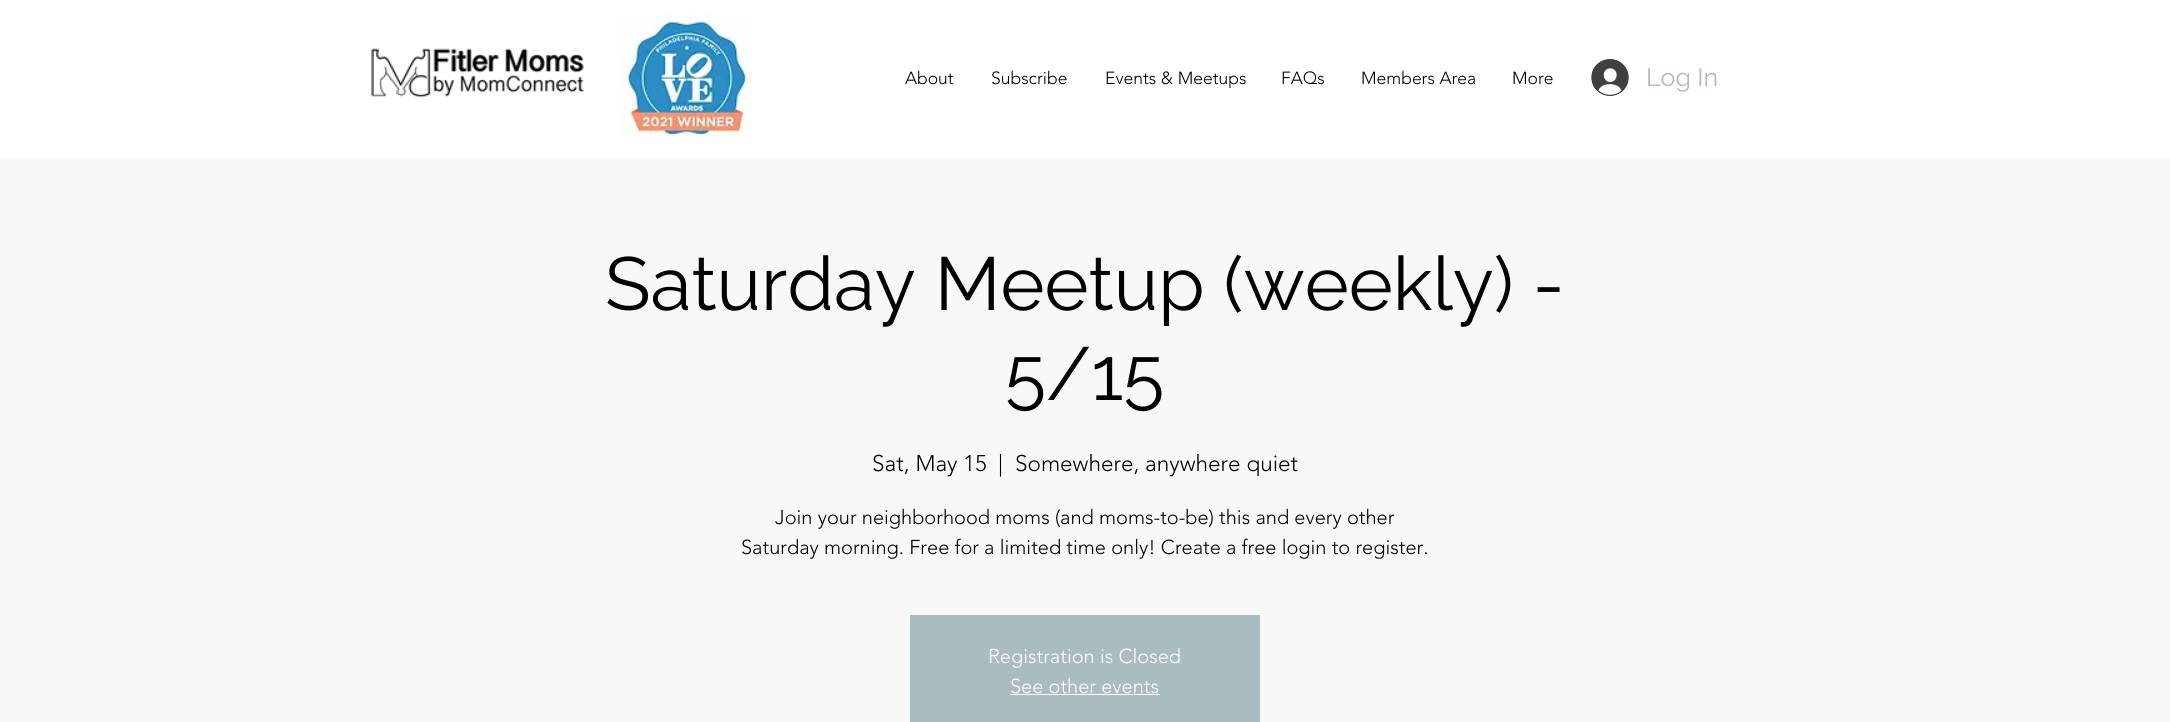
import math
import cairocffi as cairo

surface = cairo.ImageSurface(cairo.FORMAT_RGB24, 2170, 722)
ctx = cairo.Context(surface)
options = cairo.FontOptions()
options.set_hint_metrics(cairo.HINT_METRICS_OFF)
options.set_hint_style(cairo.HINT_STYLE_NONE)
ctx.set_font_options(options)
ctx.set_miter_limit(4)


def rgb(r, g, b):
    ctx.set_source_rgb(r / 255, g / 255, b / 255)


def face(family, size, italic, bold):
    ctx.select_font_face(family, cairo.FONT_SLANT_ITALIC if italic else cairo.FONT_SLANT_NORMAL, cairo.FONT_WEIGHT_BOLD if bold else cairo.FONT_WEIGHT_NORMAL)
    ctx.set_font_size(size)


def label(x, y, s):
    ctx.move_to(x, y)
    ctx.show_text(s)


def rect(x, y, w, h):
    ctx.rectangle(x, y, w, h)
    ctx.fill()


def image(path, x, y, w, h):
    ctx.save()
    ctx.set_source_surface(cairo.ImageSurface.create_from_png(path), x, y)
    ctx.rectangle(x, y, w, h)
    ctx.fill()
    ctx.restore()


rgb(255, 255, 255)
ctx.paint()
image('image0.png', 621, 15, 131, 122)
image('image1.png', 371, 48, 213, 50)
face('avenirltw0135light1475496 Light', 17.5, 0, 0)
rgb(0, 0, 0)
label(905, 84, 'About')
label(991, 84, 'Subscribe')
label(1105, 84, 'Events & Meetups')
label(1281, 84, 'FAQs')
label(1361, 84, 'Members Area')
label(1512, 84, 'More')
image('image2.png', 1591, 59, 38, 37)
face('Raleway', 25, 0, 0)
rgb(170, 188, 191)
label(1646, 86, 'Log In')
rgb(247, 249, 249)
rect(0, 158, 2170, 564)
face('Raleway', 75, 0, 0)
rgb(0, 0, 0)
label(605, 310, 'Saturday Meetup (weekly) -')
label(1005, 400, '5/15')
face('avenirltw0135light1475496 Light', 22.5, 0, 0)
label(872, 471, 'Sat, May 15')
label(998, 471, '|')
label(1015, 471, 'Somewhere, anywhere quiet')
face('avenirltw0135light1475496 Light', 20, 0, 0)
label(775, 524, 'Join your neighborhood moms (and moms-to-be) this and every other')
label(741, 554, 'Saturday morning. Free for a limited time only! Create a free login to register.')
rgb(170, 188, 191)
rect(910, 615, 350, 107)
rgb(255, 255, 255)
label(988, 663, 'Registration is Closed')
label(1010, 693, 'See other events')
rect(1010, 694, 150, 1)
surface.write_to_png('render.png')
